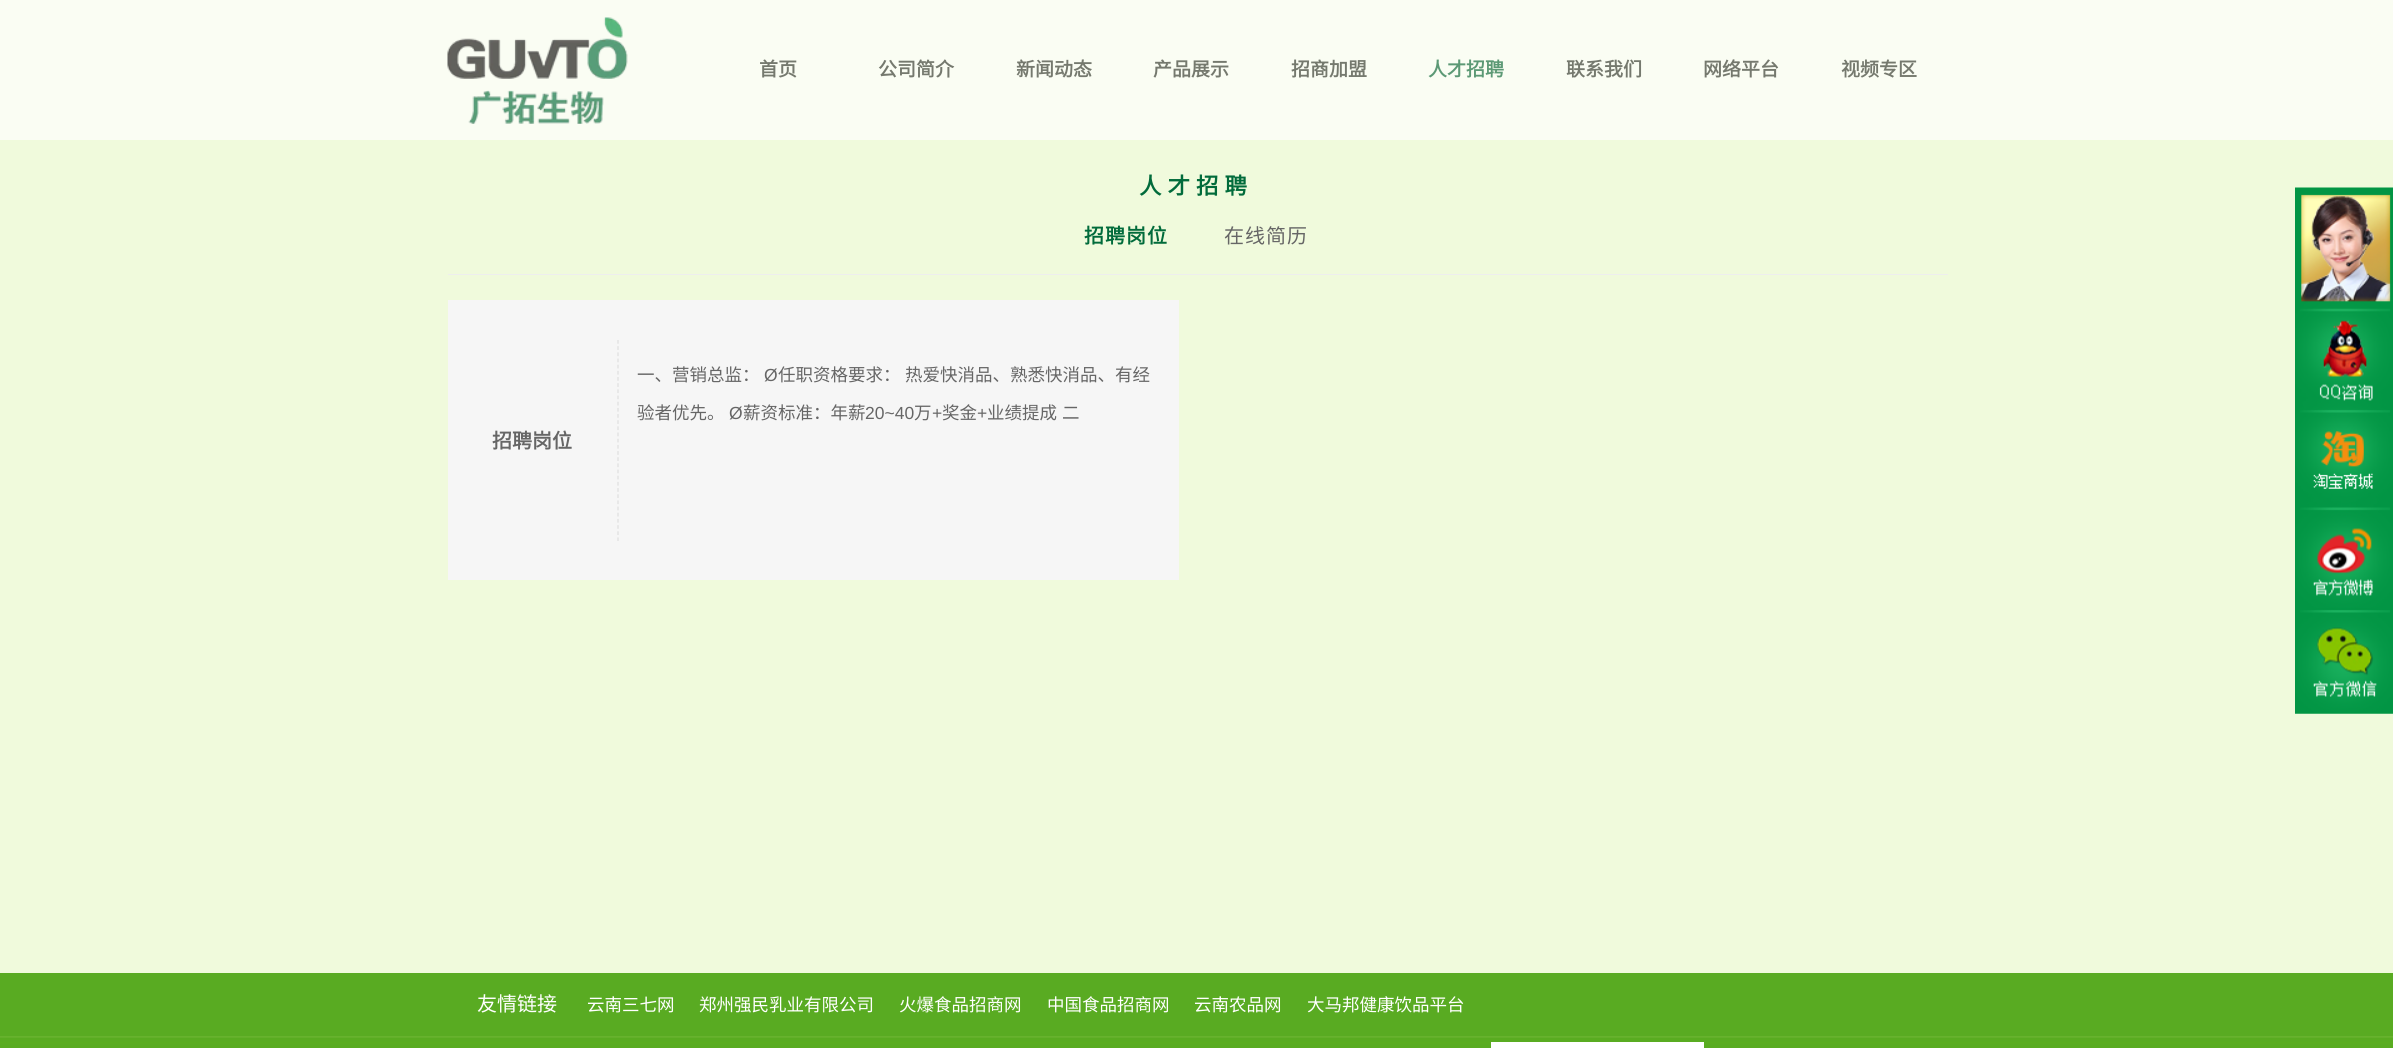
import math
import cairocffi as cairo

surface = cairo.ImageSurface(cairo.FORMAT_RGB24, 2393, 1048)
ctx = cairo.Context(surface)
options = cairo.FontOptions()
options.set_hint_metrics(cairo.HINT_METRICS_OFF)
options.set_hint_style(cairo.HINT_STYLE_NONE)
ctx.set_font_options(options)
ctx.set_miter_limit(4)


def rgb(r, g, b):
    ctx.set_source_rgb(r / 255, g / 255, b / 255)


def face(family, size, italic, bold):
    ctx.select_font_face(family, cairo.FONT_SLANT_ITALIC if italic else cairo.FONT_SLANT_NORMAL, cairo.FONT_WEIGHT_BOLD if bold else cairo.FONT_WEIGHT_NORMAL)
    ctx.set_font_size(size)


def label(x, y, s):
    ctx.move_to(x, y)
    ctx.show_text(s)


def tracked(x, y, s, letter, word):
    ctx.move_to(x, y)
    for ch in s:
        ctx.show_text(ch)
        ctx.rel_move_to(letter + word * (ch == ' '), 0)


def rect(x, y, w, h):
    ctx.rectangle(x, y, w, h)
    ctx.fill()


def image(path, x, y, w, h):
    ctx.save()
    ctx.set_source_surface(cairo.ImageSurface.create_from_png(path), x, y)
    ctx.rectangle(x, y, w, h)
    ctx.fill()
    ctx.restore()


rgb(240, 250, 220)
ctx.paint()
rgb(250, 253, 243)
rect(0, 0, 2393, 140)
image('image0.png', 447, 17, 181, 107)
face('Noto Sans CJK SC', 19, 0, 1)
rgb(117, 121, 110)
label(759, 76, '首页')
label(878, 76, '公司简介')
label(1016, 76, '新闻动态')
label(1153, 76, '产品展示')
label(1291, 76, '招商加盟')
rgb(92, 153, 117)
label(1428, 76, '人才招聘')
rgb(117, 121, 110)
label(1566, 76, '联系我们')
label(1703, 76, '网络平台')
label(1841, 76, '视频专区')
rgb(238, 238, 238)
rect(448, 274, 1500, 1)
face('Noto Sans CJK SC', 22.5, 0, 1)
rgb(1, 107, 59)
tracked(1139, 194, '人才招聘', 6, 0)
face('Noto Sans CJK SC', 20, 0, 1)
tracked(1084, 243, '招聘岗位', 1, 0)
face('Noto Sans CJK SC', 20, 0, 0)
rgb(102, 102, 102)
tracked(1224, 243, '在线简历', 1, 0)
rgb(246, 246, 246)
rect(448, 300, 731, 280)
face('Noto Sans CJK SC', 17.5, 0, 0)
rgb(102, 102, 102)
label(637, 381, '一、营销总监：')
face('Liberation Sans', 17.5, 0, 0)
label(764, 381, 'Ø')
face('Noto Sans CJK SC', 17.5, 0, 0)
label(778, 381, '任职资格要求：')
label(905, 381, '热爱快消品、熟悉快消品、有经')
label(637, 419, '验者优先。')
face('Liberation Sans', 17.5, 0, 0)
label(729, 419, 'Ø')
face('Noto Sans CJK SC', 17.5, 0, 0)
label(743, 419, '薪资标准：年薪')
face('Liberation Sans', 17.5, 0, 0)
label(865, 419, '20~40')
face('Noto Sans CJK SC', 17.5, 0, 0)
label(914, 419, '万')
face('Liberation Sans', 17.5, 0, 0)
label(932, 419, '+')
face('Noto Sans CJK SC', 17.5, 0, 0)
label(942, 419, '奖金')
face('Liberation Sans', 17.5, 0, 0)
label(977, 419, '+')
face('Noto Sans CJK SC', 17.5, 0, 0)
label(987, 419, '业绩提成')
label(1062, 419, '二')
ctx.new_path()
ctx.move_to(618, 340)
ctx.line_to(618, 541)
rgb(223, 223, 223)
ctx.set_line_width(1.2)
ctx.set_dash([3.75, 2.42])
ctx.stroke()
face('Noto Sans CJK SC', 20, 0, 1)
rgb(102, 102, 102)
label(492, 448, '招聘岗位')
image('image1.png', 2295, 187, 98, 527)
image('image2.png', 2319, 320, 54, 81)
image('image3.png', 2313, 431, 60, 58)
image('image4.png', 2313, 528, 60, 68)
image('image5.png', 2313, 627, 64, 70)
rgb(89, 171, 34)
rect(0, 973, 2393, 64)
face('Noto Sans CJK SC', 20, 0, 0)
rgb(255, 255, 255)
label(477, 1011, '友情链接')
face('Noto Sans CJK SC', 17.5, 0, 0)
label(587, 1011, '云南三七网')
label(699, 1011, '郑州强民乳业有限公司')
label(899, 1011, '火爆食品招商网')
label(1047, 1011, '中国食品招商网')
label(1194, 1011, '云南农品网')
label(1307, 1011, '大马邦健康饮品平台')
image('image6.png', 0, 1036, 2393, 12)
rect(1491, 1042, 213, 6)
surface.write_to_png('render.png')
